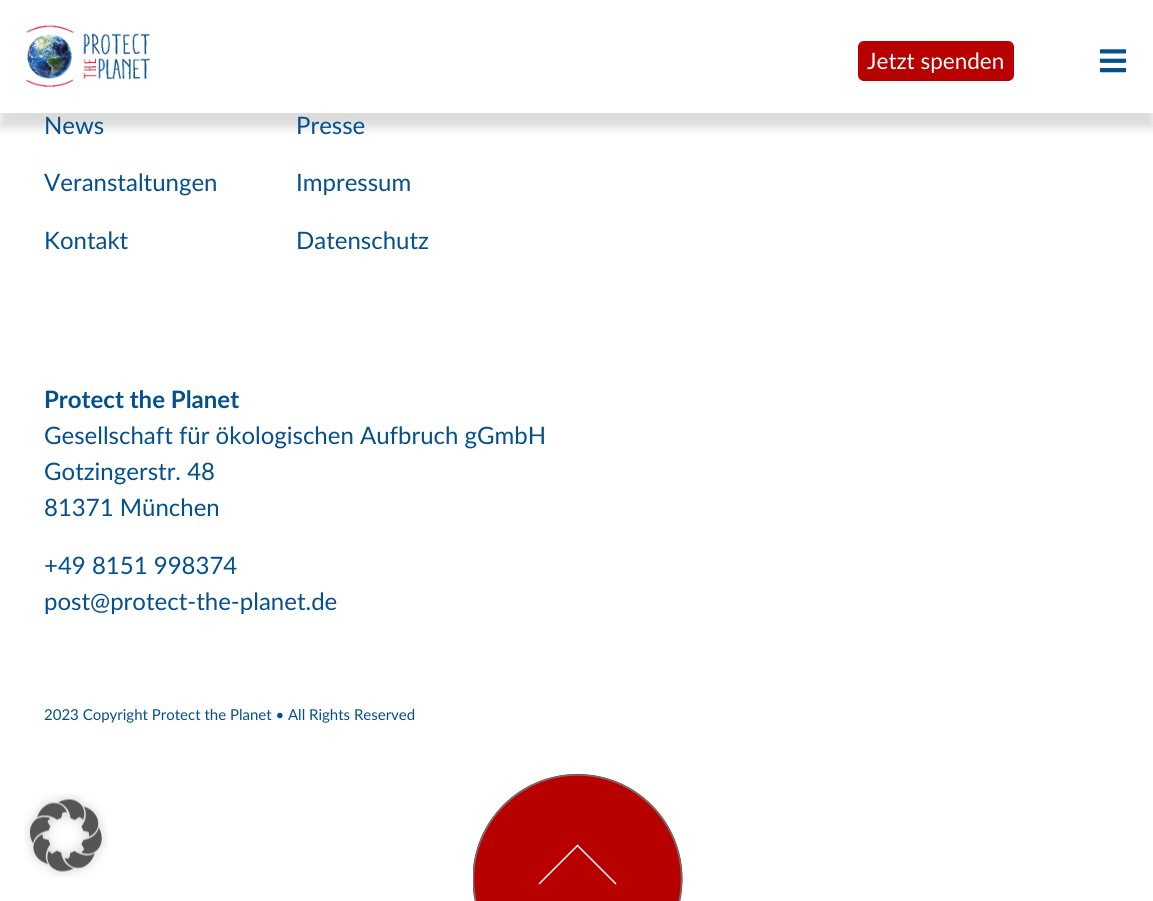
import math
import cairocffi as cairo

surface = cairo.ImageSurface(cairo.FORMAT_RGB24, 1153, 901)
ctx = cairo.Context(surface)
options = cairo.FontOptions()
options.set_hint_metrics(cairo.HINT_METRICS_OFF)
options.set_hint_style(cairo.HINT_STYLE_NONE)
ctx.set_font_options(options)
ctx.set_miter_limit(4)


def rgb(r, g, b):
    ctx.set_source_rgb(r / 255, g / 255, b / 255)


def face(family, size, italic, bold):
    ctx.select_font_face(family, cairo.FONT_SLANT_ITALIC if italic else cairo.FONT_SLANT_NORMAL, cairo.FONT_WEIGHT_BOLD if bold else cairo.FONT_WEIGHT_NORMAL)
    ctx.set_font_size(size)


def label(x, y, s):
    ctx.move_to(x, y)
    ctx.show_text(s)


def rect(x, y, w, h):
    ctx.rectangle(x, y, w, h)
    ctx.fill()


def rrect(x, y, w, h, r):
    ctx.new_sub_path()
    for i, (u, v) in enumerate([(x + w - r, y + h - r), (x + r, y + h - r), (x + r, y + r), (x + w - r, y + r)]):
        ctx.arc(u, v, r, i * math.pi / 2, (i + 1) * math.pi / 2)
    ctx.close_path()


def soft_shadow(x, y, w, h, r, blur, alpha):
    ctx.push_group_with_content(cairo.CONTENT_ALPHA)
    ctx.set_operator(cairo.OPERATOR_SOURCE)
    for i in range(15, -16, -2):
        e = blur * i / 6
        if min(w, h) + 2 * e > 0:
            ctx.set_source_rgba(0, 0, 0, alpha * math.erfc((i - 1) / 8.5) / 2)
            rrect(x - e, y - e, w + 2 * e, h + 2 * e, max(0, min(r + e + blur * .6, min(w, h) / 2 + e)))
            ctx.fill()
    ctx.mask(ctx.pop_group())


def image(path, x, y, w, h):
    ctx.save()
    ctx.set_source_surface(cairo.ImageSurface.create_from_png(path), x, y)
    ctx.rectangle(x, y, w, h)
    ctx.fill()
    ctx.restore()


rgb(255, 255, 255)
ctx.paint()
rgb(0, 0, 0)
soft_shadow(0, 15, 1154, 113, 0, 4.5, 0.14)
rgb(255, 255, 255)
rect(0, 8, 1153, 105)
image('image0.png', 26, 25, 124, 62)
rgb(184, 0, 0)
rrect(858, 41, 156, 40, 6)
ctx.fill()
face('Lato', 22.5, 0, 0)
rgb(255, 255, 255)
label(867, 69, 'Jetzt spenden')
image('image1.png', 1099, 49, 28, 24)
face('Lato', 24, 0, 0)
rgb(4, 80, 140)
label(44, 134, 'News')
label(44, 191, 'Veranstaltungen')
label(44, 249, 'Kontakt')
label(296, 134, 'Presse')
label(296, 191, 'Impressum')
label(296, 249, 'Datenschutz')
face('Lato', 24, 0, 1)
label(44, 408, 'Protect the Planet')
face('Lato', 24, 0, 0)
label(44, 444, 'Gesellschaft für ökologischen Aufbruch gGmbH')
label(44, 480, 'Gotzingerstr. 48')
label(44, 516, '81371 München')
label(44, 574, '+49 8151 998374')
label(44, 610, 'post@protect-the-planet.de')
face('Lato', 15, 0, 0)
label(44, 720, '2023 Copyright Protect the Planet • All Rights Reserved')
ctx.save()
ctx.rectangle(473, 774, 210, 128)
ctx.clip()
rgb(184, 0, 0)
ctx.arc(577.5, 879, 105, 0, 2 * math.pi)
ctx.fill()
ctx.arc(577.5, 879, 104, 0, 2 * math.pi)
rgb(112, 112, 112)
ctx.set_line_width(1.5)
ctx.stroke()
ctx.restore()
ctx.new_path()
ctx.move_to(539, 884)
ctx.line_to(577.5, 845.5)
ctx.line_to(616, 884)
rgb(255, 255, 255)
ctx.set_line_width(1.5)
ctx.stroke()
image('image2.png', 24, 793, 84, 84)
surface.write_to_png('render.png')
